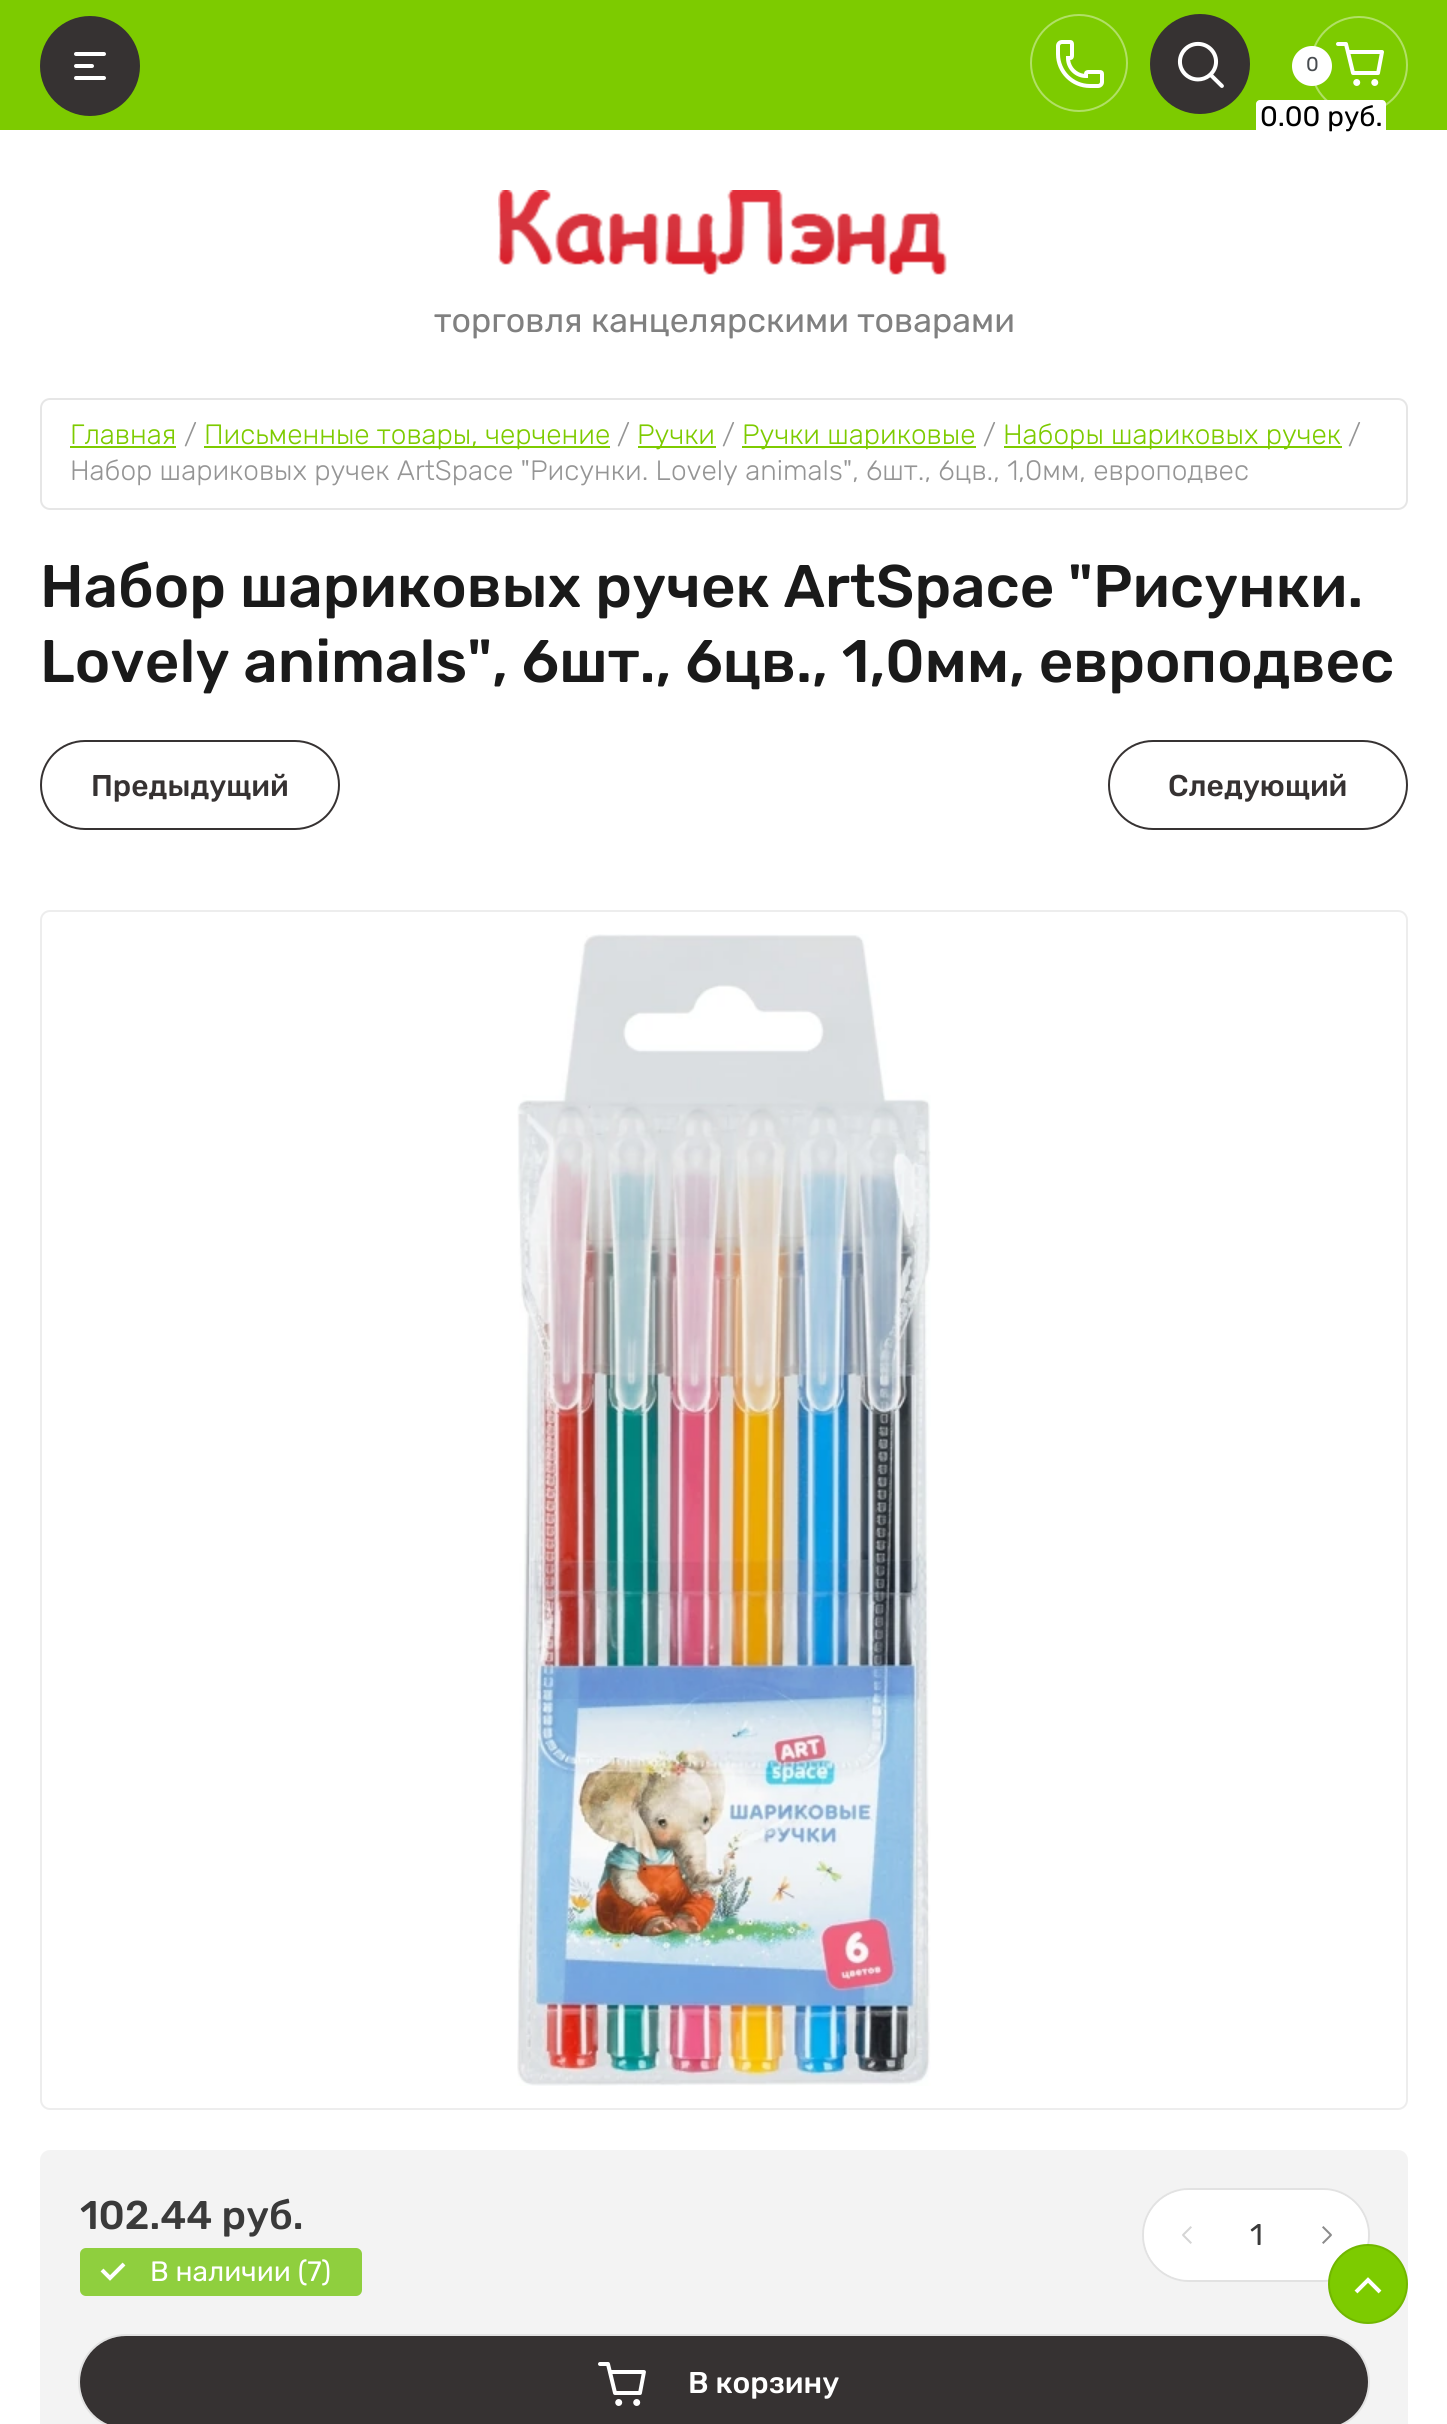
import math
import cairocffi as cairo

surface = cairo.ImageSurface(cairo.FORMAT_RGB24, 1447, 2424)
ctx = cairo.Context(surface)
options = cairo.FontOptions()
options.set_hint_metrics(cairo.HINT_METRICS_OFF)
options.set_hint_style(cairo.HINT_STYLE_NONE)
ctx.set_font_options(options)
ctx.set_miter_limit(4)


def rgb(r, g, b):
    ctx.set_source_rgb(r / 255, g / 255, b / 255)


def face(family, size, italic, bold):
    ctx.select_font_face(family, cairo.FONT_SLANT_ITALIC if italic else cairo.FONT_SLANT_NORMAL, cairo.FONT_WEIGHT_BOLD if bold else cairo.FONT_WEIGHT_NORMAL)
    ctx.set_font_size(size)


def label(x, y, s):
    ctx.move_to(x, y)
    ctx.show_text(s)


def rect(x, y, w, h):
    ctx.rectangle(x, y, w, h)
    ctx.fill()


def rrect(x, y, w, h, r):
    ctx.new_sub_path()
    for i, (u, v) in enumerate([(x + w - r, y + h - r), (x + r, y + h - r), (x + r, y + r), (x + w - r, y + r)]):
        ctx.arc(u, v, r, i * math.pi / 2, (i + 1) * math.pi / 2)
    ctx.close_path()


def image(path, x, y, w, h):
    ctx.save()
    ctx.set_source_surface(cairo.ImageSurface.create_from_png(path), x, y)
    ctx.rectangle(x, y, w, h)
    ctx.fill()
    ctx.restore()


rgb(255, 255, 255)
ctx.paint()
rgb(125, 203, 0)
rect(0, 0, 1447, 130)
rgb(54, 50, 50)
ctx.arc(90, 66, 50, 0, 2 * math.pi)
ctx.fill()
image('image0.png', 74, 52, 32, 28)
image('image1.png', 1056, 40, 48, 48)
ctx.arc(1079, 63, 48, 0, 2 * math.pi)
rgb(177, 224, 102)
ctx.stroke()
rgb(54, 50, 50)
ctx.arc(1200, 64, 50, 0, 2 * math.pi)
ctx.fill()
image('image2.png', 1177, 41, 47, 47)
ctx.arc(1359, 65, 48, 0, 2 * math.pi)
rgb(177, 224, 102)
ctx.stroke()
rgb(255, 255, 255)
ctx.arc(1312, 66, 20, 0, 2 * math.pi)
ctx.fill()
face('Rubik', 20, 0, 0)
rgb(72, 76, 80)
label(1306, 71, '0')
image('image3.png', 1336, 42, 48, 44)
rgb(255, 255, 255)
rrect(1256, 100, 130, 36, 4)
ctx.fill()
face('Rubik', 28, 0, 0)
rgb(0, 0, 0)
label(1260, 126, '0.00 руб.')
image('image4.png', 498, 190, 449, 85)
face('Rubik', 34, 0, 0)
rgb(128, 128, 128)
label(434, 332, 'торговля канцелярскими товарами')
rrect(41, 399, 1366, 110, 9)
rgb(230, 230, 230)
ctx.stroke()
face('Rubik Light', 28, 0, 0)
rgb(125, 203, 0)
label(70, 444, 'Главная')
rect(70, 446, 106, 2)
rgb(149, 149, 149)
label(184, 444, '/')
rgb(125, 203, 0)
rect(204, 446, 406, 2)
label(204, 444, 'Письменные товары, черчение')
rgb(149, 149, 149)
label(617, 444, '/')
rgb(125, 203, 0)
rect(638, 446, 78, 2)
label(637, 444, 'Ручки')
rgb(149, 149, 149)
label(722, 444, '/')
rgb(125, 203, 0)
rect(742, 446, 234, 2)
label(742, 444, 'Ручки шариковые')
rgb(149, 149, 149)
label(983, 444, '/')
rgb(125, 203, 0)
rect(1004, 446, 338, 2)
label(1003, 444, 'Наборы шариковых ручек')
rgb(149, 149, 149)
label(1348, 444, '/')
label(70, 480, 'Набор шариковых ручек ArtSpace "Рисунки. Lovely animals", 6шт., 6цв., 1,0мм, европодвес')
face('Rubik Medium', 60, 0, 0)
rgb(26, 26, 26)
label(40, 607, 'Набор шариковых ручек ArtSpace "Рисунки.')
label(40, 682, 'Lovely animals", 6шт., 6цв., 1,0мм, европодвес')
rrect(41, 741, 298, 88, 44)
rgb(54, 50, 50)
ctx.stroke()
face('Rubik Medium', 30, 0, 0)
label(91, 796, 'Предыдущий')
rrect(1109, 741, 298, 88, 44)
ctx.stroke()
label(1168, 796, 'Следующий')
image('image5.png', 517, 934, 414, 1152)
rrect(41, 911, 1366, 1198, 9)
rgb(237, 237, 237)
ctx.stroke()
rgb(243, 243, 243)
rrect(40, 2150, 1368, 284, 10)
ctx.fill()
face('Rubik Medium', 40, 0, 0)
rgb(58, 58, 58)
label(80, 2229, '102.44 руб.')
rgb(143, 207, 62)
rrect(80, 2248, 282, 48, 6)
ctx.fill()
ctx.new_path()
ctx.move_to(102, 2270)
ctx.line_to(110, 2278)
ctx.line_to(124, 2264)
rgb(255, 255, 255)
ctx.set_line_width(4)
ctx.stroke()
face('Rubik', 28, 0, 0)
label(150, 2281, 'В наличии (7)')
rrect(1143, 2189, 226, 92, 46)
rgb(226, 226, 226)
ctx.set_line_width(2)
ctx.stroke()
rgb(255, 255, 255)
rrect(1144, 2190, 224, 90, 45)
ctx.fill()
image('image6.png', 1182, 2226, 10, 18)
face('Rubik', 30, 0, 0)
rgb(58, 58, 58)
label(1250, 2245, '1')
image('image7.png', 1322, 2226, 10, 18)
rrect(79, 2335, 1290, 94, 47)
rgb(226, 226, 226)
ctx.stroke()
rgb(54, 50, 50)
rrect(80, 2336, 1288, 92, 46)
ctx.fill()
image('image8.png', 598, 2362, 48, 44)
face('Rubik Medium', 30, 0, 0)
rgb(255, 255, 255)
label(688, 2393, 'В корзину')
rgb(125, 203, 0)
ctx.new_path()
ctx.arc(1368, 2284, 40, 0, 2 * math.pi)
ctx.fill()
ctx.new_path()
ctx.move_to(1356, 2292)
ctx.line_to(1368, 2280)
ctx.line_to(1380, 2292)
rgb(255, 255, 255)
ctx.set_line_width(4)
ctx.stroke()
ctx.arc(1368, 2284, 39, 0, 2 * math.pi)
ctx.set_source_rgba(0, 0, 0, 0.1)
ctx.set_line_width(2)
ctx.stroke()
surface.write_to_png('render.png')
